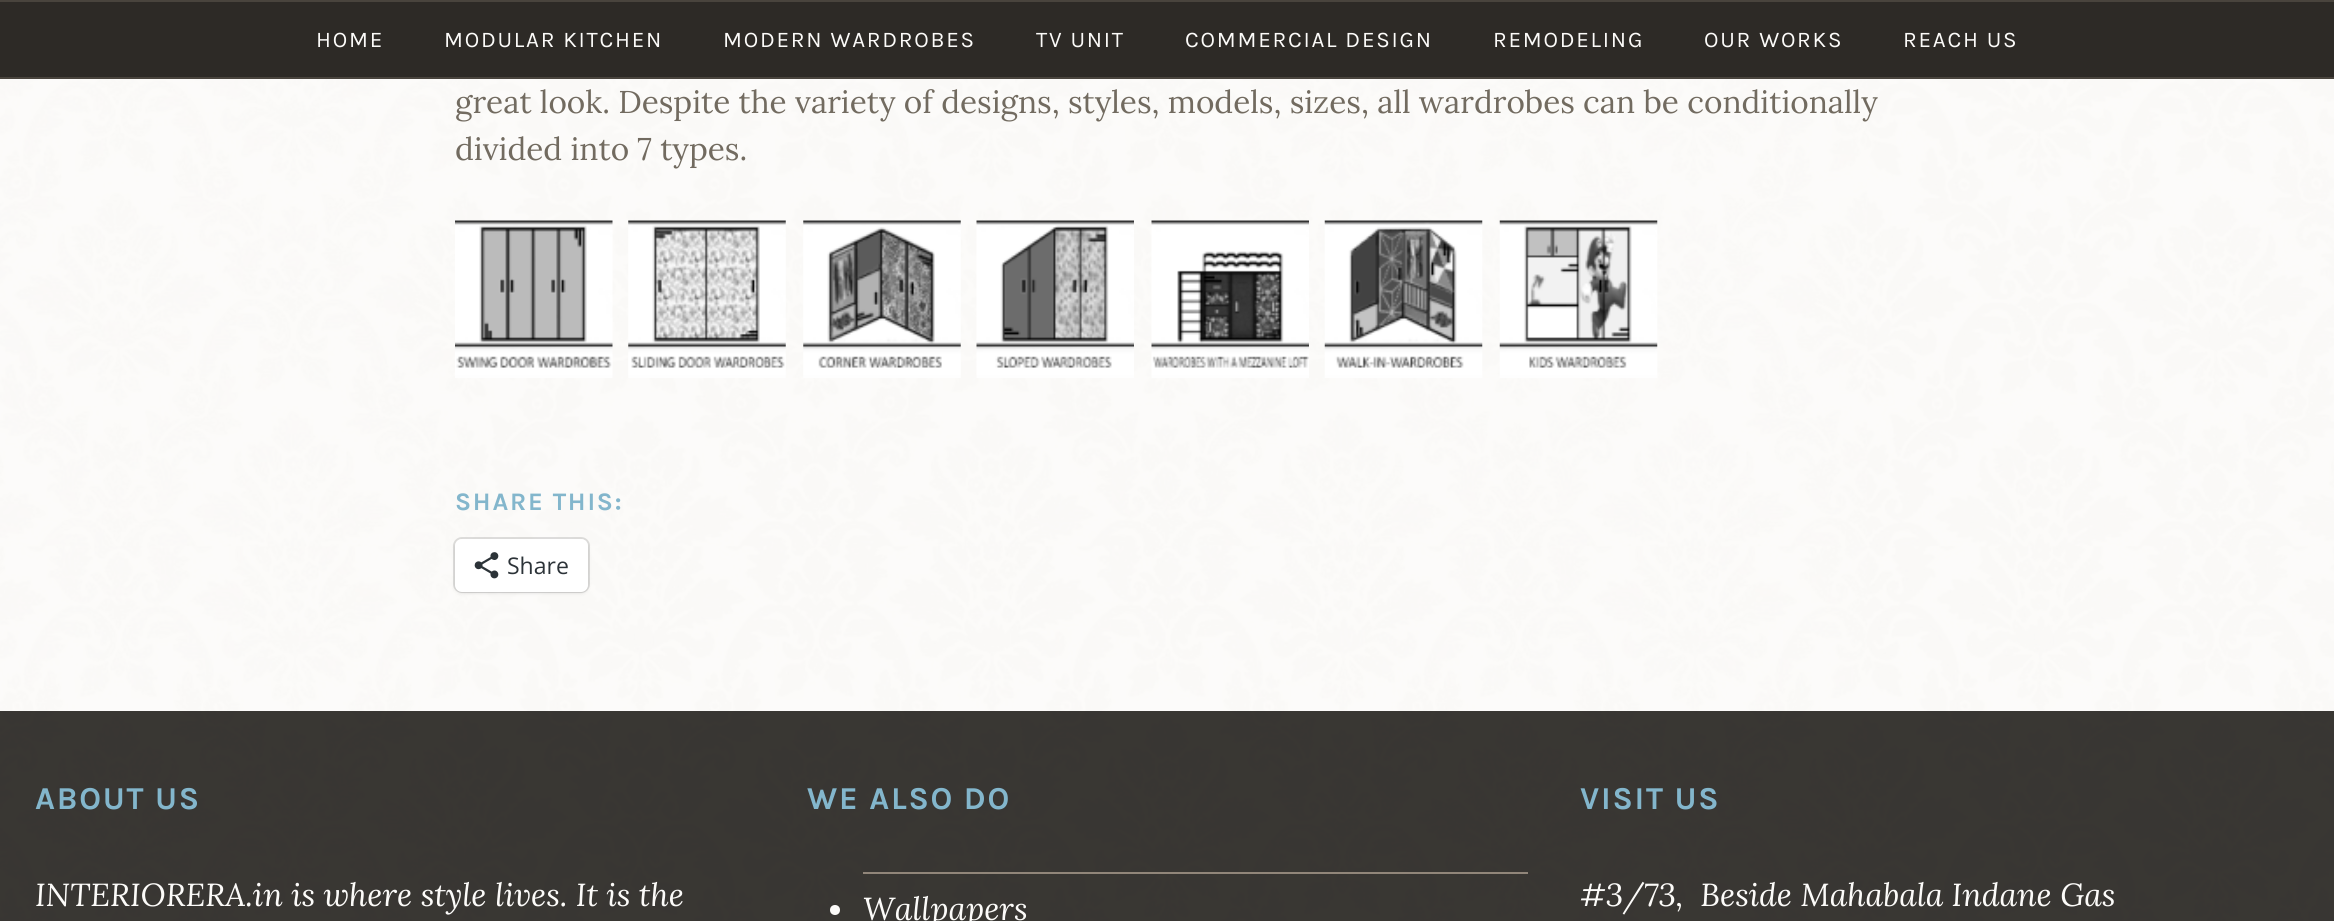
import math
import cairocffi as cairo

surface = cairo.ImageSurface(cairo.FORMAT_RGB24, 2334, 921)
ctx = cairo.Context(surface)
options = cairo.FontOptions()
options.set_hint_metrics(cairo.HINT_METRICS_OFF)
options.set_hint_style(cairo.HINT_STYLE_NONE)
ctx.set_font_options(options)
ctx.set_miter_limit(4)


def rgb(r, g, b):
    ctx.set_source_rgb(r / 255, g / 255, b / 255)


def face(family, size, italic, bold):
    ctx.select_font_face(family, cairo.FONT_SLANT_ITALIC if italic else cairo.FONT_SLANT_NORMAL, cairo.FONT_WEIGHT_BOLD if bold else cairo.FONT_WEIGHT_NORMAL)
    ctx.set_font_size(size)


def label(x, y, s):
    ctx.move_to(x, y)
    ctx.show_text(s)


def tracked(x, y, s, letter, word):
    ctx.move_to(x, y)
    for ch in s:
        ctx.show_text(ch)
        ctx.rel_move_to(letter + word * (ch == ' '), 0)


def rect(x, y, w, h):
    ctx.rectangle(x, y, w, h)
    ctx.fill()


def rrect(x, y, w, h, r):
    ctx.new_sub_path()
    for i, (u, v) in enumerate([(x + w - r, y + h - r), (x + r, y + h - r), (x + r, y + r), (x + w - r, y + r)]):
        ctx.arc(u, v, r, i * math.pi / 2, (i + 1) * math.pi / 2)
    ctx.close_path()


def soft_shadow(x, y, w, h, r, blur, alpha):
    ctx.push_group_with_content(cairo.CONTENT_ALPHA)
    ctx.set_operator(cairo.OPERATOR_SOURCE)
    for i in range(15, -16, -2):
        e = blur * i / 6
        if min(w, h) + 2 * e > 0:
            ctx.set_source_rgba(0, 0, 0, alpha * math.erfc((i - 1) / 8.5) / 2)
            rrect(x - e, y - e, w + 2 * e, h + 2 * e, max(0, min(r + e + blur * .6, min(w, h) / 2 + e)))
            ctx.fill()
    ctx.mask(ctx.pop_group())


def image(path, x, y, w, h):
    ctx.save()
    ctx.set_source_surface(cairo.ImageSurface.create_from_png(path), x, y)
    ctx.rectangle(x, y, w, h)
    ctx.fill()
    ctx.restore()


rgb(255, 255, 255)
ctx.paint()
image('image0.png', 0, 79, 2334, 842)
rgb(45, 42, 38)
rect(0, 2, 2334, 75)
rgb(73, 68, 61)
rect(0, 0, 2334, 2)
rect(0, 77, 2334, 2)
face('Karla', 22.4, 0, 0)
rgb(252, 251, 249)
tracked(316, 47, 'HOME', 1.75, 0)
tracked(444, 47, 'MODULAR KITCHEN', 1.75, 0)
tracked(723, 47, 'MODERN WARDROBES', 1.75, 0)
tracked(1036, 47, 'TV UNIT', 1.75, 0)
tracked(1185, 47, 'COMMERCIAL DESIGN', 1.75, 0)
tracked(1493, 47, 'REMODELING', 1.75, 0)
tracked(1704, 47, 'OUR WORKS', 1.75, 0)
tracked(1903, 47, 'REACH US', 1.75, 0)
face('Lora', 31.5, 0, 0)
rgb(114, 107, 96)
label(455, 113, 'great look. Despite the variety of designs, styles, models, sizes, all wardrobes can be conditionally')
label(455, 160, 'divided into 7 types.')
image('image1.png', 455, 220, 158, 158)
image('image2.png', 628, 220, 158, 158)
image('image3.png', 803, 220, 158, 158)
image('image4.png', 976, 220, 158, 158)
image('image5.png', 1151, 220, 158, 158)
image('image6.png', 1324, 220, 159, 158)
image('image7.png', 1499, 220, 159, 158)
face('Karla', 25.25, 0, 1)
rgb(131, 182, 204)
tracked(455, 510, 'SHARE THIS:', 1.75, 0)
rrect(454, 538, 135, 54, 8)
ctx.set_source_rgba(0, 0, 0, 0.12)
ctx.stroke()
rgb(0, 0, 0)
soft_shadow(455, 541, 133, 52, 7, 2, 0.12)
rgb(255, 255, 255)
rrect(455, 539, 133, 53, 7)
ctx.fill()
image('image8.png', 474, 552, 25, 27)
face('Open Sans', 23, 0, 0)
rgb(44, 51, 56)
label(507, 574, 'Share')
ctx.set_source_rgba(0.122, 0.114, 0.102, 0.88)
rect(0, 711, 2334, 210)
face('Karla', 31.9, 0, 1)
rgb(131, 182, 204)
tracked(35, 809, 'ABOUT US', 1.75, 0)
face('Lora', 31.9, 1, 0)
rgb(252, 251, 249)
label(35, 906, 'INTERIORERA.in is where style lives. It is the')
face('Karla', 31.9, 0, 1)
rgb(131, 182, 204)
tracked(807, 809, 'WE ALSO DO', 1.75, 0)
rgb(252, 251, 249)
ctx.new_path()
ctx.arc(835, 910, 5, 0, 2 * math.pi)
ctx.fill()
rgb(145, 134, 122)
rect(863, 872, 665, 2)
face('Lora', 31.9, 1, 0)
rgb(252, 251, 249)
label(863, 920, 'Wallpapers')
face('Karla', 31.9, 0, 1)
rgb(131, 182, 204)
tracked(1580, 809, 'VISIT US', 1.75, 0)
face('Lora', 31.9, 1, 0)
rgb(252, 251, 249)
label(1580, 906, '#3/73,  Beside Mahabala Indane Gas')
surface.write_to_png('render.png')
